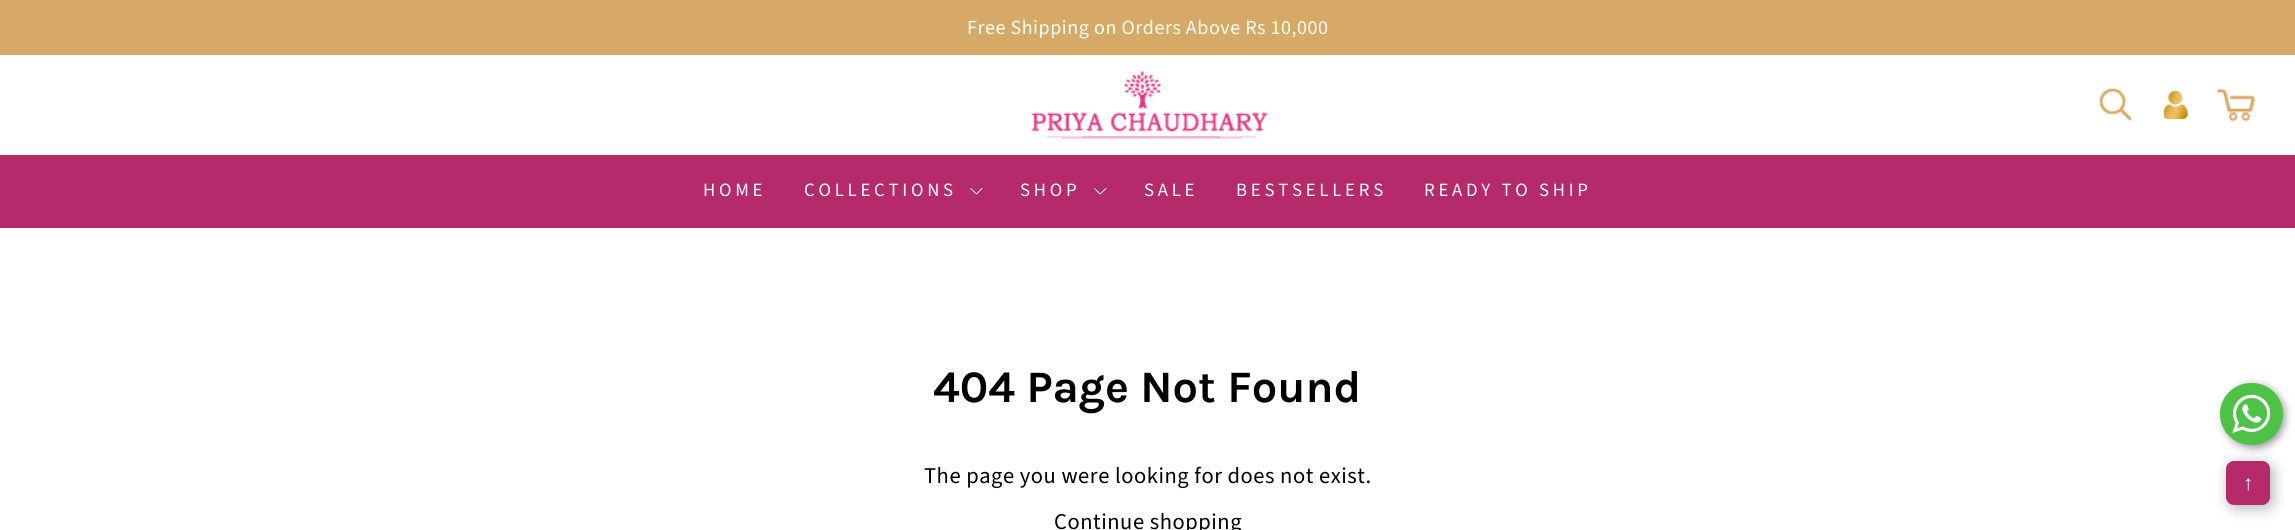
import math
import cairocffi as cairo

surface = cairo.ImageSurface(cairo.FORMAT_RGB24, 2295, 530)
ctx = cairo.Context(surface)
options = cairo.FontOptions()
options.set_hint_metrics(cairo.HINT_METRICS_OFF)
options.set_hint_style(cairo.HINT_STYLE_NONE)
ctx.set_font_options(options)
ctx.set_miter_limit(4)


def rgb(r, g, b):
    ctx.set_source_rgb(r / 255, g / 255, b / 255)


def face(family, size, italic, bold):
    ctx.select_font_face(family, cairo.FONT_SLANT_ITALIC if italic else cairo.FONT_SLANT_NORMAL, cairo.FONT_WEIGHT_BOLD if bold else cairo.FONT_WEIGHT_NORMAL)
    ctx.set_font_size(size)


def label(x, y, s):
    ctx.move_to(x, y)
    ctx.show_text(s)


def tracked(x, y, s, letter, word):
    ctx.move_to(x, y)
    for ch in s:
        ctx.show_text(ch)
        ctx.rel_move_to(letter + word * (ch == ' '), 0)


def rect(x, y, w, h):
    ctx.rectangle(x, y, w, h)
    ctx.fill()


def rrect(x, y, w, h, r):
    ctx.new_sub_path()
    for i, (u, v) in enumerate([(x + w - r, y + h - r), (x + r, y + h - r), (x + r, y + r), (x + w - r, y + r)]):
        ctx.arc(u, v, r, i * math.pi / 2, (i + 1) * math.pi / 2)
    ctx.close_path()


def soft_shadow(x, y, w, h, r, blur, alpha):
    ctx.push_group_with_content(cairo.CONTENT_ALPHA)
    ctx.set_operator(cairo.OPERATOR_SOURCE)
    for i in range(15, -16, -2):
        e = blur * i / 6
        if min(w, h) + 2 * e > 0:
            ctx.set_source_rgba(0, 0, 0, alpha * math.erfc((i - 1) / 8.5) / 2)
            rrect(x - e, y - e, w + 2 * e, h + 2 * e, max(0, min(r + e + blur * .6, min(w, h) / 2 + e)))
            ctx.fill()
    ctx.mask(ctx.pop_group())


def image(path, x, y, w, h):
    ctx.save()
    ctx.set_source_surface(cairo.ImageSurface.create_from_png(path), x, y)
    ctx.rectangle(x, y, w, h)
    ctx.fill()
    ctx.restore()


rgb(255, 255, 255)
ctx.paint()
rgb(215, 169, 102)
rect(0, 0, 2295, 55)
face('Source Sans Pro', 20, 0, 0)
rgb(255, 255, 255)
tracked(967, 34, 'Free Shipping on Orders Above Rs 10,000', 0.55, 0)
rgb(181, 42, 107)
rect(0, 155, 2295, 73)
image('image0.png', 1031, 71, 237, 68)
image('image1.png', 2098, 88, 34, 33)
image('image2.png', 2163, 91, 26, 29)
image('image3.png', 2216, 88, 40, 34)
face('Source Sans Pro', 18.75, 0, 0)
rgb(255, 255, 255)
tracked(703, 196, 'HOME', 3.75, 0)
tracked(804, 196, 'COLLECTIONS', 3.75, 0)
ctx.new_path()
ctx.move_to(970.5, 188.5)
ctx.line_to(976.5, 194)
ctx.line_to(982, 188.5)
ctx.set_line_width(0.9)
ctx.set_line_cap(cairo.LINE_CAP_ROUND)
ctx.set_line_join(cairo.LINE_JOIN_ROUND)
ctx.stroke()
tracked(1020, 196, 'SHOP', 3.75, 0)
ctx.new_path()
ctx.move_to(1094.5, 188.5)
ctx.line_to(1100, 194)
ctx.line_to(1106, 188.5)
ctx.stroke()
tracked(1144, 196, 'SALE', 3.75, 0)
tracked(1236, 196, 'BESTSELLERS', 3.75, 0)
tracked(1424, 196, 'READY TO SHIP', 3.75, 0)
face('Karla', 45, 0, 1)
rgb(0, 0, 0)
label(933, 402, '404 Page Not Found')
face('Source Sans Pro', 22.5, 0, 0)
tracked(924, 483, 'The page you were looking for does not exist.', 0.55, 0)
tracked(1054, 529, 'Continue shopping', 0.55, 0)
rgb(0, 0, 0)
soft_shadow(2223, 385, 62, 63, 31, 4, 0.4)
soft_shadow(2229, 464, 44, 44, 8, 7, 0.3)
rgb(77, 194, 71)
rrect(2220, 383, 63, 62, 31)
ctx.fill()
image('image4.png', 2232, 394, 39, 39)
rgb(181, 42, 107)
rrect(2226, 461, 44, 44, 8)
ctx.fill()
face('Liberation Sans', 21, 0, 1)
rgb(255, 255, 255)
tracked(2243, 490, '↑', 0.55, 0)
surface.write_to_png('render.png')
